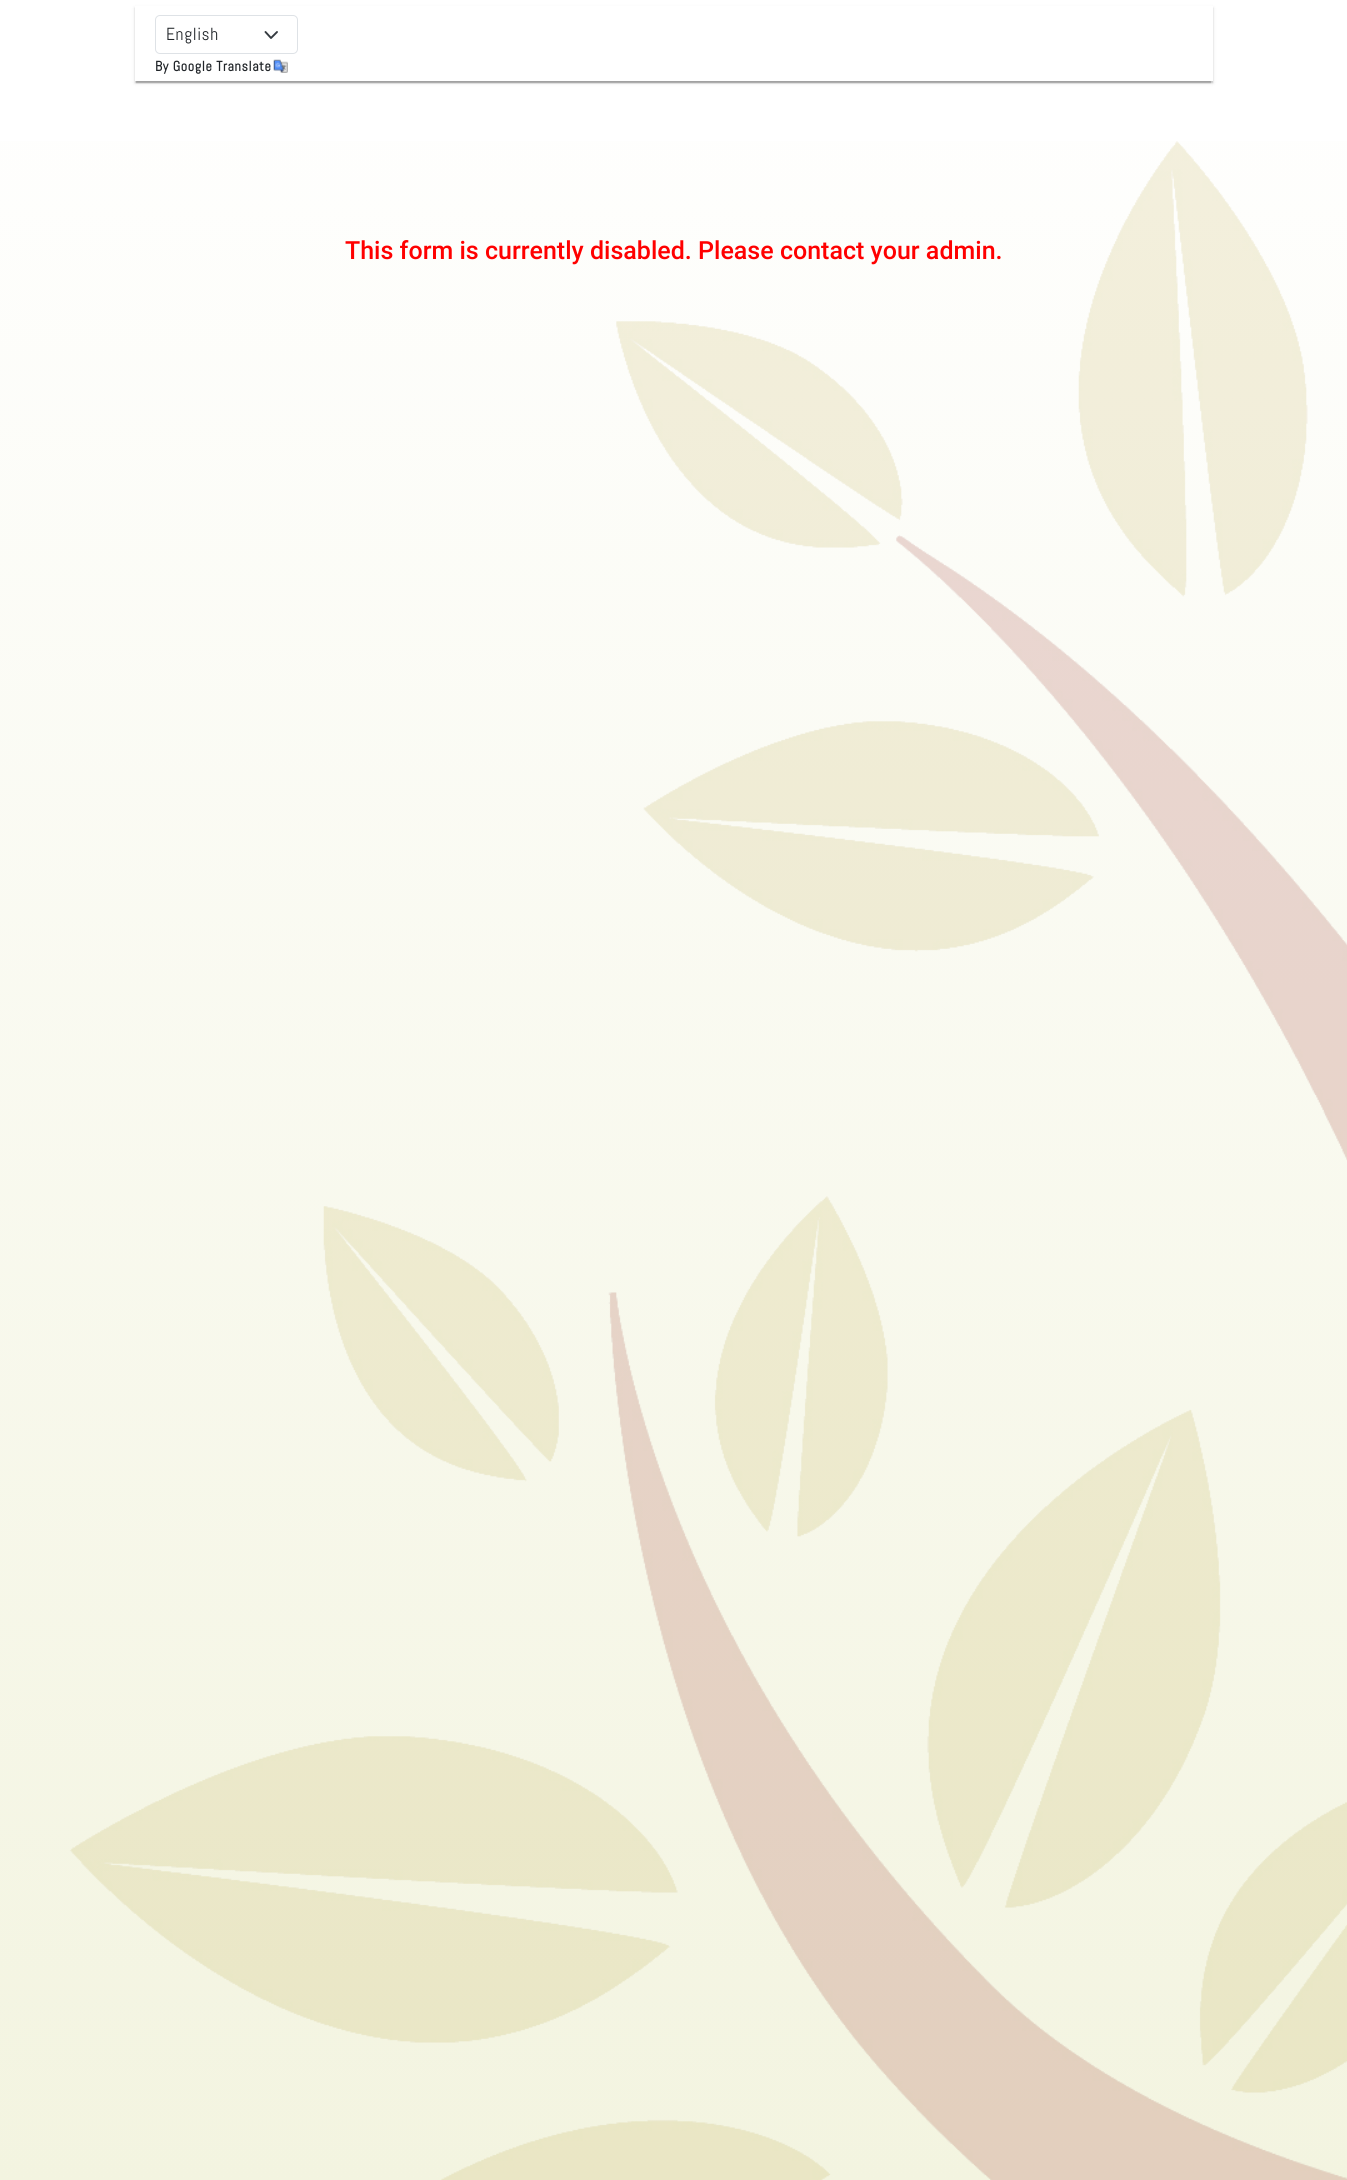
import math
import cairocffi as cairo

surface = cairo.ImageSurface(cairo.FORMAT_RGB24, 1347, 2180)
ctx = cairo.Context(surface)
options = cairo.FontOptions()
options.set_hint_metrics(cairo.HINT_METRICS_OFF)
options.set_hint_style(cairo.HINT_STYLE_NONE)
ctx.set_font_options(options)
ctx.set_miter_limit(4)


def rgb(r, g, b):
    ctx.set_source_rgb(r / 255, g / 255, b / 255)


def face(family, size, italic, bold):
    ctx.select_font_face(family, cairo.FONT_SLANT_ITALIC if italic else cairo.FONT_SLANT_NORMAL, cairo.FONT_WEIGHT_BOLD if bold else cairo.FONT_WEIGHT_NORMAL)
    ctx.set_font_size(size)


def label(x, y, s):
    ctx.move_to(x, y)
    ctx.show_text(s)


def tracked(x, y, s, letter, word):
    ctx.move_to(x, y)
    for ch in s:
        ctx.show_text(ch)
        ctx.rel_move_to(letter + word * (ch == ' '), 0)


def rect(x, y, w, h):
    ctx.rectangle(x, y, w, h)
    ctx.fill()


def rrect(x, y, w, h, r):
    ctx.new_sub_path()
    for i, (u, v) in enumerate([(x + w - r, y + h - r), (x + r, y + h - r), (x + r, y + r), (x + w - r, y + r)]):
        ctx.arc(u, v, r, i * math.pi / 2, (i + 1) * math.pi / 2)
    ctx.close_path()


def soft_shadow(x, y, w, h, r, blur, alpha):
    ctx.push_group_with_content(cairo.CONTENT_ALPHA)
    ctx.set_operator(cairo.OPERATOR_SOURCE)
    for i in range(15, -16, -2):
        e = blur * i / 6
        if min(w, h) + 2 * e > 0:
            ctx.set_source_rgba(0, 0, 0, alpha * math.erfc((i - 1) / 8.5) / 2)
            rrect(x - e, y - e, w + 2 * e, h + 2 * e, max(0, min(r + e + blur * .6, min(w, h) / 2 + e)))
            ctx.fill()
    ctx.mask(ctx.pop_group())


def image(path, x, y, w, h):
    ctx.save()
    ctx.set_source_surface(cairo.ImageSurface.create_from_png(path), x, y)
    ctx.rectangle(x, y, w, h)
    ctx.fill()
    ctx.restore()


rgb(255, 255, 255)
ctx.paint()
image('image0.png', 0, 141, 1347, 2039)
ctx.save()
ctx.set_fill_rule(cairo.FILL_RULE_EVEN_ODD)
ctx.new_path()
ctx.move_to(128, 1)
ctx.line_to(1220, 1)
ctx.line_to(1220, 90)
ctx.line_to(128, 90)
ctx.close_path()
ctx.move_to(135, 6)
ctx.line_to(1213, 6)
ctx.line_to(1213, 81)
ctx.line_to(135, 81)
ctx.close_path()
ctx.clip()
rgb(0, 0, 0)
soft_shadow(135, 8, 1078, 75, 0, 2, 0.12)
ctx.restore()
ctx.save()
ctx.set_fill_rule(cairo.FILL_RULE_EVEN_ODD)
ctx.new_path()
ctx.move_to(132, 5)
ctx.line_to(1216, 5)
ctx.line_to(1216, 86)
ctx.line_to(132, 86)
ctx.close_path()
ctx.move_to(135, 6)
ctx.line_to(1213, 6)
ctx.line_to(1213, 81)
ctx.line_to(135, 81)
ctx.close_path()
ctx.clip()
rgb(0, 0, 0)
soft_shadow(135, 8, 1078, 75, 0, 0.5, 0.14)
ctx.restore()
ctx.save()
ctx.rectangle(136, 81, 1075, 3)
ctx.clip()
rgb(0, 0, 0)
soft_shadow(136, 10, 1075, 73, 0, 0.5, 0.2)
ctx.restore()
ctx.set_source_rgba(1, 1, 1, 0.6)
rect(1212, 7, 1, 74)
ctx.new_path()
ctx.move_to(265.5, 32)
ctx.line_to(271, 38)
ctx.line_to(277, 32)
rgb(52, 58, 64)
ctx.set_line_width(1.9)
ctx.set_line_cap(cairo.LINE_CAP_ROUND)
ctx.set_line_join(cairo.LINE_JOIN_ROUND)
ctx.stroke()
rrect(155.5, 15.5, 142, 38, 4.5)
rgb(222, 226, 230)
ctx.set_line_width(1)
ctx.set_line_cap(cairo.LINE_CAP_BUTT)
ctx.set_line_join(cairo.LINE_JOIN_MITER)
ctx.stroke()
face('Abel', 17.5, 0, 0)
rgb(33, 37, 41)
tracked(166, 40, 'English', 0.6, 0)
face('Abel', 14, 0, 1)
tracked(155, 71, 'By Google Translate', 0.6, 0)
image('image1.png', 273, 59, 15, 14)
face('Roboto Medium', 25, 0, 0)
rgb(255, 0, 0)
label(345, 259, 'This form is currently disabled. Please contact your admin.')
surface.write_to_png('render.png')
